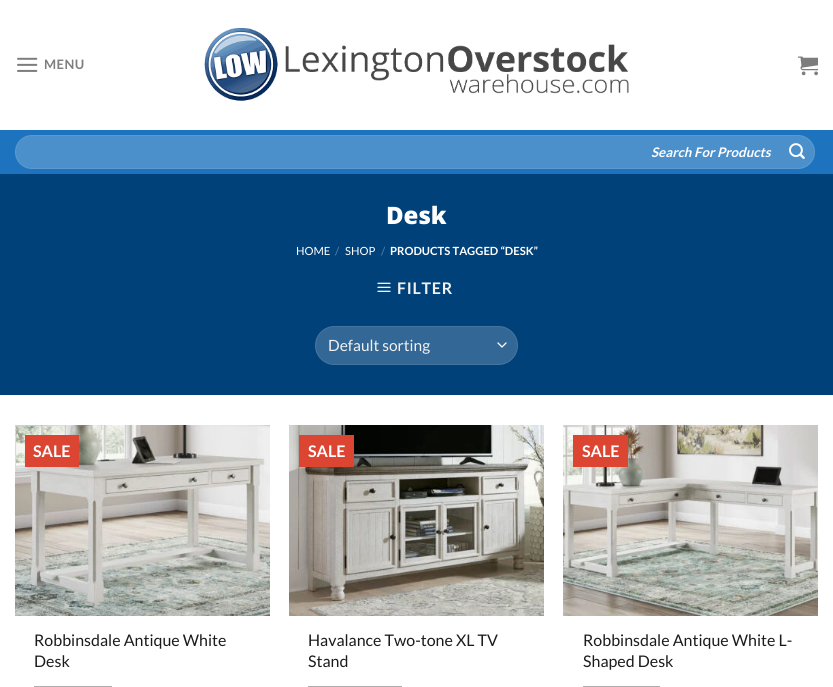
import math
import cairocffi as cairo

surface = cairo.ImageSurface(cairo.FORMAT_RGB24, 833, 687)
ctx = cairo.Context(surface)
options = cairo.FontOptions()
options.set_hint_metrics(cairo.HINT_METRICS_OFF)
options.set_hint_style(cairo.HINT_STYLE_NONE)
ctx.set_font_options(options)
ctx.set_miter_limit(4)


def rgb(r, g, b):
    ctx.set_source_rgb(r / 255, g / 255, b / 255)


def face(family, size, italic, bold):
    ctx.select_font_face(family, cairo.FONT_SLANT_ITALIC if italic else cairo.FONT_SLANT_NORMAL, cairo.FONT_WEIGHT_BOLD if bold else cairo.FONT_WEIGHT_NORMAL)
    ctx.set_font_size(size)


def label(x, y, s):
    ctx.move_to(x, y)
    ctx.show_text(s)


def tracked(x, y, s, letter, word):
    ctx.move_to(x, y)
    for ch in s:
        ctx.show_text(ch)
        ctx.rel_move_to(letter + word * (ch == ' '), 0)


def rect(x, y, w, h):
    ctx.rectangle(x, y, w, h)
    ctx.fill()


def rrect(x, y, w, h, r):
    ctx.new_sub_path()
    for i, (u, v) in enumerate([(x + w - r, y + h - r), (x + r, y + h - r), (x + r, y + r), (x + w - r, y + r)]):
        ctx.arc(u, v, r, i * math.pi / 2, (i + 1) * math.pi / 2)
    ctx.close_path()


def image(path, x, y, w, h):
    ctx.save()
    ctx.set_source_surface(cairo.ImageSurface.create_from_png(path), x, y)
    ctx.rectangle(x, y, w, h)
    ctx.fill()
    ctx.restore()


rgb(255, 255, 255)
ctx.paint()
image('image0.png', 17, 57, 21, 15)
face('Lato', 13, 0, 1)
rgb(125, 125, 125)
tracked(44, 69, 'MENU', 0.5, 0)
image('image1.png', 204, 28, 425, 73)
image('image2.png', 798, 56, 20, 20)
rgb(30, 115, 190)
rect(0, 130, 833, 44)
rgb(75, 143, 203)
rrect(15, 135, 800, 34, 17)
ctx.fill()
rrect(15.5, 135.5, 799, 33, 16.5)
ctx.set_source_rgba(1, 1, 1, 0.09)
ctx.set_line_width(1)
ctx.stroke()
face('Lato', 13.25, 1, 1)
rgb(255, 255, 255)
label(651, 157, 'Search For Products')
image('image3.png', 789, 143, 16, 16)
rgb(0, 65, 122)
rect(0, 174, 833, 221)
face('Open Sans ExtraBold', 24, 0, 0)
rgb(255, 255, 255)
label(386, 224, 'Desk')
face('Lato', 11.25, 0, 0)
label(296, 255, 'HOME')
rgb(89, 132, 169)
label(335, 255, '/')
rgb(255, 255, 255)
label(345, 255, 'SHOP')
rgb(89, 132, 169)
label(381, 255, '/')
face('Lato', 11.25, 0, 1)
rgb(255, 255, 255)
label(390, 255, 'PRODUCTS TAGGED “DESK”')
image('image4.png', 377, 282, 14, 10)
face('Lato', 16, 0, 1)
rgb(241, 241, 241)
tracked(397, 294, 'FILTER', 0.75, 0)
rgb(51, 103, 149)
rrect(315, 326, 203, 39, 19.5)
ctx.fill()
ctx.new_path()
ctx.move_to(498, 343)
ctx.line_to(502, 347)
ctx.line_to(506, 343)
rgb(255, 255, 255)
ctx.set_line_width(1.3)
ctx.set_line_cap(cairo.LINE_CAP_ROUND)
ctx.set_line_join(cairo.LINE_JOIN_ROUND)
ctx.stroke()
rrect(315.5, 326.5, 202, 38, 19)
ctx.set_source_rgba(1, 1, 1, 0.09)
ctx.set_line_width(1)
ctx.set_line_cap(cairo.LINE_CAP_BUTT)
ctx.set_line_join(cairo.LINE_JOIN_MITER)
ctx.stroke()
face('Lato', 15.5, 0, 0)
rgb(241, 241, 241)
label(328, 351, 'Default sorting')
image('image5.png', 15, 425, 255, 191)
rgb(220, 69, 50)
rect(25, 435, 54, 32)
face('Lato', 16, 0, 1)
rgb(255, 255, 255)
label(33, 457, 'SALE')
face('Lato', 16, 0, 0)
rgb(27, 27, 27)
label(34, 646, 'Robbinsdale Antique White')
label(34, 667, 'Desk')
rgb(173, 173, 173)
rect(34, 686, 78, 1)
image('image6.png', 289, 425, 255, 191)
rgb(220, 69, 50)
rect(299, 435, 55, 32)
face('Lato', 16, 0, 1)
rgb(255, 255, 255)
label(308, 457, 'SALE')
face('Lato', 16, 0, 0)
rgb(27, 27, 27)
label(308, 646, 'Havalance Two-tone XL TV')
label(308, 667, 'Stand')
rgb(173, 173, 173)
rect(308, 686, 94, 1)
image('image7.png', 563, 425, 255, 191)
rgb(220, 69, 50)
rect(573, 435, 55, 32)
face('Lato', 16, 0, 1)
rgb(255, 255, 255)
label(582, 457, 'SALE')
face('Lato', 16, 0, 0)
rgb(27, 27, 27)
label(583, 646, 'Robbinsdale Antique White L-')
label(583, 667, 'Shaped Desk')
rgb(173, 173, 173)
rect(583, 686, 77, 1)
surface.write_to_png('render.png')
